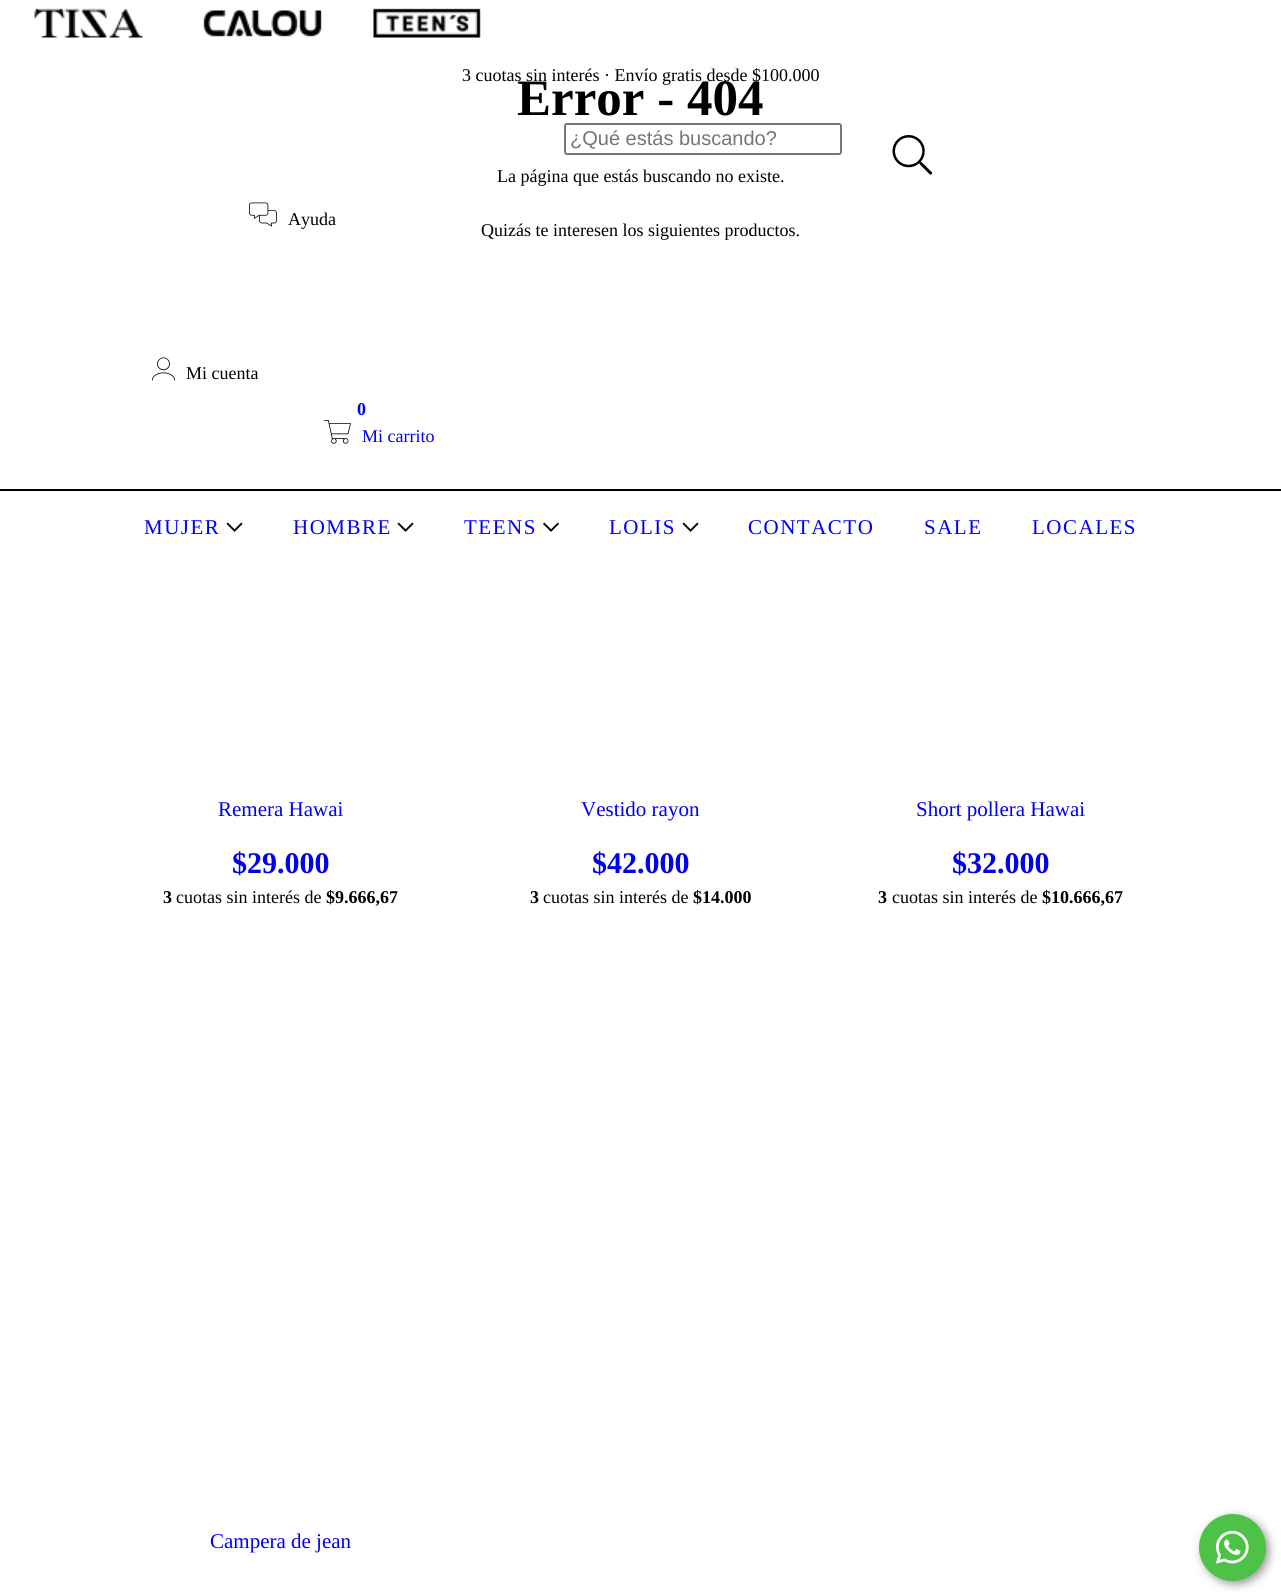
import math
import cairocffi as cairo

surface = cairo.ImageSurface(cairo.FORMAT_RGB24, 1281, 1596)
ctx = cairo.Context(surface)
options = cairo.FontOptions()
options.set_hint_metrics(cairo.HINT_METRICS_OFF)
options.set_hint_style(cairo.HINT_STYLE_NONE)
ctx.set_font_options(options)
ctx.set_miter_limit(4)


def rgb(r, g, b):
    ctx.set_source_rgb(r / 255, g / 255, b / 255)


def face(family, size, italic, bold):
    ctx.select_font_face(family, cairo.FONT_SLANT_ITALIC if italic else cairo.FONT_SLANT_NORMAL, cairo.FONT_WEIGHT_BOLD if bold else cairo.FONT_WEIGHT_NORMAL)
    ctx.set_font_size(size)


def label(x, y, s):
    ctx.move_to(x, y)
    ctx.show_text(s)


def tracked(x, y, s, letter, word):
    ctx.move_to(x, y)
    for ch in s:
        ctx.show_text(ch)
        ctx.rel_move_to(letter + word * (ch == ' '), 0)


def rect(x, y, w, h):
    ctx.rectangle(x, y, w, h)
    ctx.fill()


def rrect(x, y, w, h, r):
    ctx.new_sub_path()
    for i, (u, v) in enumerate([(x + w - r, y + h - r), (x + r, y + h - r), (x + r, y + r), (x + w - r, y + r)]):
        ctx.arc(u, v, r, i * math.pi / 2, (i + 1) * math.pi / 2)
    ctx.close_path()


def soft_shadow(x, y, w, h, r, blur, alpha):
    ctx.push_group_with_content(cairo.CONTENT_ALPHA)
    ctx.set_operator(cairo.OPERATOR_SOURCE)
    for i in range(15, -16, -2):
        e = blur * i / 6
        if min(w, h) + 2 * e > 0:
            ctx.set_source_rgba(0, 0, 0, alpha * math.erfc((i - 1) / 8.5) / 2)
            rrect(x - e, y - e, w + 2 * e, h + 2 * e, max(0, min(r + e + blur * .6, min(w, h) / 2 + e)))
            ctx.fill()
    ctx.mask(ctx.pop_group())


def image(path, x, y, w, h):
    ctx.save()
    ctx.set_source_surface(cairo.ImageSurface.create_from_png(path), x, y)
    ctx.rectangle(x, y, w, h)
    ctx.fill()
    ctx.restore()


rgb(255, 255, 255)
ctx.paint()
image('image0.png', 34, 8, 109, 30)
image('image1.png', 203, 10, 119, 27)
image('image2.png', 373, 8, 108, 30)
face('Liberation Serif', 18, 0, 0)
rgb(0, 0, 0)
label(462, 81, '3 cuotas sin interés · Envío gratis desde $100.000')
rrect(565, 124, 276, 30, 2)
rgb(118, 118, 118)
ctx.stroke()
face('Liberation Sans', 20, 0, 0)
rgb(117, 117, 117)
label(570, 145, '¿Qué estás buscando?')
image('image3.png', 892, 135, 41, 40)
image('image4.png', 249, 202, 28, 25)
face('Liberation Serif', 18, 0, 0)
rgb(0, 0, 0)
label(288, 225, 'Ayuda')
image('image5.png', 151, 357, 24, 24)
label(186, 379, 'Mi cuenta')
face('Liberation Serif', 18, 0, 1)
rgb(0, 0, 238)
label(357, 415, '0')
image('image6.png', 324, 420, 27, 24)
face('Liberation Serif', 18, 0, 0)
label(362, 442, 'Mi carrito')
rgb(0, 0, 0)
rect(0, 489, 1281, 2)
face('Liberation Serif', 21, 0, 0)
rgb(0, 0, 238)
tracked(144, 534, 'MUJER', 1.5, 0)
image('image7.png', 226, 522, 17, 10)
tracked(293, 534, 'HOMBRE', 1.5, 0)
image('image7.png', 397, 522, 17, 10)
tracked(464, 534, 'TEENS', 1.5, 0)
image('image8.png', 543, 522, 16, 10)
tracked(609, 534, 'LOLIS', 1.5, 0)
image('image7.png', 682, 522, 17, 10)
tracked(748, 534, 'CONTACTO', 1.5, 0)
tracked(924, 534, 'SALE', 1.5, 0)
tracked(1032, 534, 'LOCALES', 1.5, 0)
face('Liberation Serif', 51, 0, 1)
rgb(0, 0, 0)
label(517, 115, 'Error - 404')
face('Liberation Serif', 18, 0, 0)
label(497, 182, 'La página que estás buscando no existe.')
label(481, 236, 'Quizás te interesen los siguientes productos.')
face('Liberation Serif', 21, 0, 0)
rgb(0, 0, 238)
label(218, 816, 'Remera Hawai')
face('Liberation Serif', 30, 0, 1)
label(232, 873, '$29.000')
face('Liberation Serif', 18, 0, 1)
rgb(0, 0, 0)
label(163, 903, '3')
face('Liberation Serif', 18, 0, 0)
label(176, 903, 'cuotas sin interés de')
face('Liberation Serif', 18, 0, 1)
label(326, 903, '$9.666,67')
face('Liberation Serif', 21, 0, 0)
rgb(0, 0, 238)
label(581, 816, 'Vestido rayon')
face('Liberation Serif', 30, 0, 1)
label(592, 873, '$42.000')
face('Liberation Serif', 18, 0, 1)
rgb(0, 0, 0)
label(530, 903, '3')
face('Liberation Serif', 18, 0, 0)
label(543, 903, 'cuotas sin interés de')
face('Liberation Serif', 18, 0, 1)
label(693, 903, '$14.000')
face('Liberation Serif', 21, 0, 0)
rgb(0, 0, 238)
label(916, 816, 'Short pollera Hawai')
face('Liberation Serif', 30, 0, 1)
label(952, 873, '$32.000')
face('Liberation Serif', 18, 0, 1)
rgb(0, 0, 0)
label(878, 903, '3')
face('Liberation Serif', 18, 0, 0)
label(892, 903, 'cuotas sin interés de')
face('Liberation Serif', 18, 0, 1)
label(1042, 903, '$10.666,67')
face('Liberation Serif', 21, 0, 0)
rgb(0, 0, 238)
label(210, 1548, 'Campera de jean')
rgb(0, 0, 0)
soft_shadow(1202, 1517, 67, 67, 33.5, 4.5, 0.4)
rgb(77, 194, 71)
ctx.arc(1232.5, 1547.5, 33.5, 0, 2 * math.pi)
ctx.fill()
image('image9.png', 1215, 1530, 34, 34)
surface.write_to_png('render.png')
